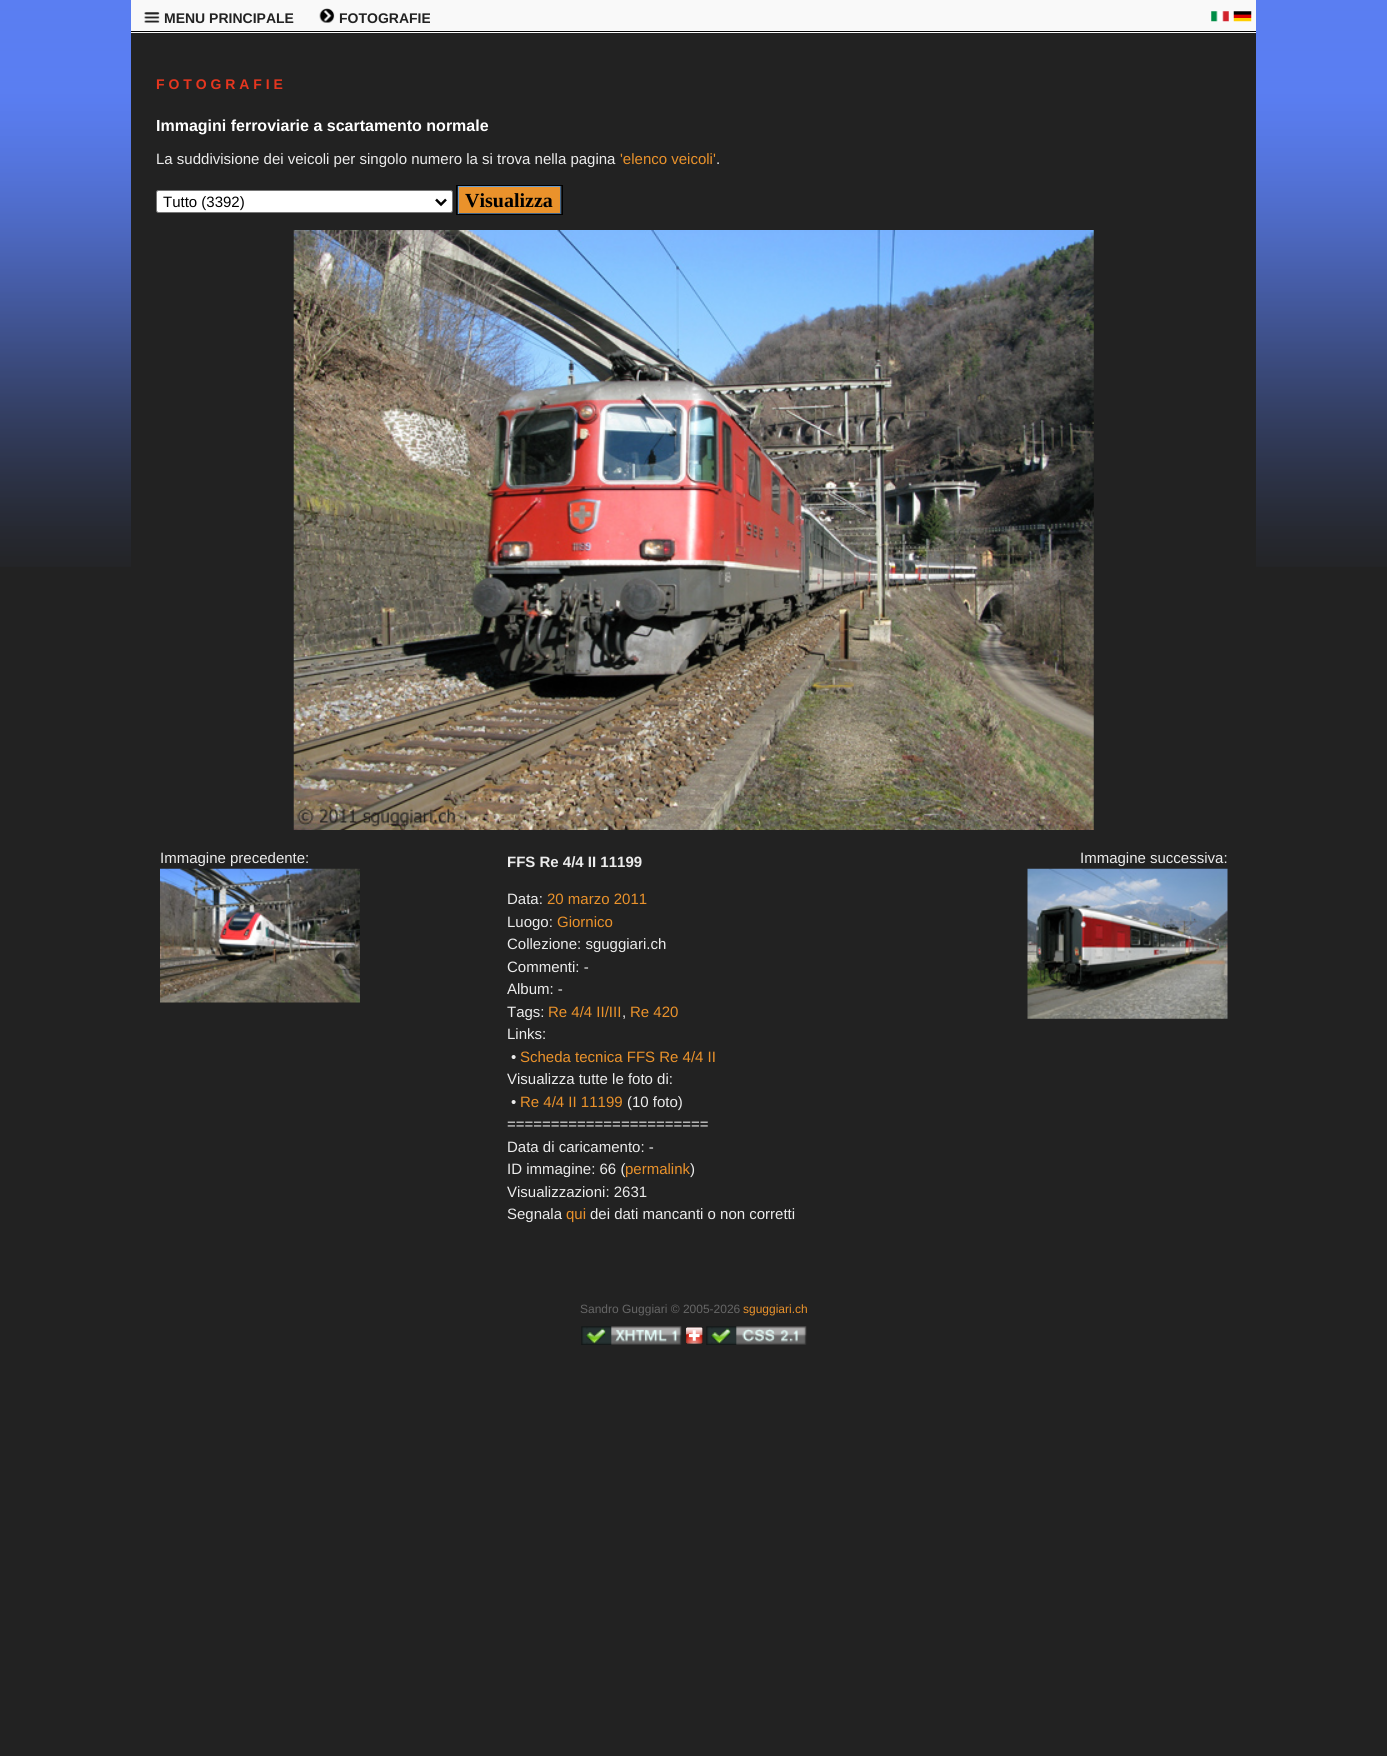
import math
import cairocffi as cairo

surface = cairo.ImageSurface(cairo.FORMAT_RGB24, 1387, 1756)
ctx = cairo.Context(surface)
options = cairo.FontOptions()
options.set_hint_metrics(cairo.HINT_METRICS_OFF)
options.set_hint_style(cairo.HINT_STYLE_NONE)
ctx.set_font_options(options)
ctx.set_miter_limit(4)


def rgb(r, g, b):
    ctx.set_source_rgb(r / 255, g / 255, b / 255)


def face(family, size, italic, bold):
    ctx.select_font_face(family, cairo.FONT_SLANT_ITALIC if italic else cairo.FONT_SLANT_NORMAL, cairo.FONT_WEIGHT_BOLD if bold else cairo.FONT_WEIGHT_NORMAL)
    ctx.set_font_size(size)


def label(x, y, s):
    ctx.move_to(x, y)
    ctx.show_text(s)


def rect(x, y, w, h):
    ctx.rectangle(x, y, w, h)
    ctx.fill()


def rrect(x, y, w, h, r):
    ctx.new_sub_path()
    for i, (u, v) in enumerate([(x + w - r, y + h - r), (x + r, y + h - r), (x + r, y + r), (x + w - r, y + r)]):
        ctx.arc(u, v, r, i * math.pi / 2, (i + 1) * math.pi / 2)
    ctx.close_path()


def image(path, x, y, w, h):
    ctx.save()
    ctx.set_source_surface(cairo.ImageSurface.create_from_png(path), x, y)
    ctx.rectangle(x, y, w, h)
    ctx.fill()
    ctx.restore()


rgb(34, 34, 34)
ctx.paint()
image('image0.png', 0, 0, 1387, 567)
rgb(34, 34, 34)
rect(131, 33, 1125, 534)
rgb(249, 249, 249)
rect(131, 0, 1125, 33)
rgb(0, 0, 0)
rect(131, 31, 1125, 1)
image('image1.png', 144, 12, 16, 11)
face('Liberation Sans', 14, 0, 1)
rgb(34, 34, 34)
label(164, 23, 'MENU PRINCIPALE')
image('image2.png', 319, 8, 16, 15)
label(339, 23, 'FOTOGRAFIE')
image('image3.png', 1211, 11, 18, 11)
image('image4.png', 1233, 11, 19, 11)
rgb(230, 54, 31)
label(156, 89, 'F O T O G R A F I E')
face('Liberation Sans', 16, 0, 1)
rgb(255, 255, 255)
label(156, 131, 'Immagini ferroviarie a scartamento normale')
face('Liberation Sans', 15, 0, 0)
rgb(236, 236, 236)
label(156, 164, 'La suddivisione dei veicoli per singolo numero la si trova nella pagina')
rgb(234, 146, 43)
label(620, 164, '\'elenco veicoli\'')
rgb(236, 236, 236)
label(716, 164, '.')
rgb(255, 255, 255)
rrect(156.5, 190.5, 296, 22, 2)
ctx.fill_preserve()
rgb(118, 118, 118)
ctx.set_line_width(1)
ctx.stroke()
ctx.new_path()
ctx.move_to(436, 199.5)
ctx.line_to(441, 204.5)
ctx.line_to(446, 199.5)
rgb(0, 0, 0)
ctx.set_line_width(2.5)
ctx.stroke()
label(163, 207, 'Tutto (3392)')
rgb(234, 146, 43)
rect(459, 187, 101, 26)
rgb(102, 153, 204)
rect(458, 186, 103, 1)
rgb(68, 102, 136)
rect(560, 186, 1, 28)
rect(458, 213, 103, 1)
rgb(102, 153, 204)
rect(458, 186, 1, 28)
ctx.rectangle(456.5, 185.5, 106, 29)
rgb(0, 0, 0)
ctx.set_line_width(1)
ctx.stroke()
face('Liberation Serif', 20, 0, 1)
label(465, 207, 'Visualizza')
image('image5.png', 293, 230, 801, 600)
face('Liberation Sans', 15, 0, 0)
rgb(236, 236, 236)
label(160, 863, 'Immagine precedente:')
image('image6.png', 160, 868, 200, 135)
face('Liberation Sans', 15, 0, 1)
label(507, 867, 'FFS Re 4/4 II 11199')
face('Liberation Sans', 15, 0, 0)
label(507, 904, 'Data:')
rgb(234, 146, 43)
label(547, 904, '20 marzo 2011')
rgb(236, 236, 236)
label(507, 927, 'Luogo:')
rgb(234, 146, 43)
label(557, 927, 'Giornico')
rgb(236, 236, 236)
label(507, 949, 'Collezione: sguggiari.ch')
label(507, 972, 'Commenti: -')
label(507, 994, 'Album: -')
label(507, 1017, 'Tags:')
rgb(234, 146, 43)
label(548, 1017, 'Re 4/4 II/III')
rgb(236, 236, 236)
label(622, 1017, ',')
rgb(234, 146, 43)
label(630, 1017, 'Re 420')
rgb(236, 236, 236)
label(507, 1039, 'Links:')
label(511, 1062, '•')
rgb(234, 146, 43)
label(520, 1062, 'Scheda tecnica FFS Re 4/4 II')
rgb(236, 236, 236)
label(507, 1084, 'Visualizza tutte le foto di:')
label(511, 1107, '•')
rgb(234, 146, 43)
label(520, 1107, 'Re 4/4 II 11199')
rgb(236, 236, 236)
label(627, 1107, '(10 foto)')
label(507, 1129, '=======================')
label(507, 1152, 'Data di caricamento: -')
label(507, 1174, 'ID immagine: 66 (')
rgb(234, 146, 43)
label(625, 1174, 'permalink')
rgb(236, 236, 236)
label(690, 1174, ')')
label(507, 1197, 'Visualizzazioni: 2631')
label(507, 1219, 'Segnala')
rgb(234, 146, 43)
label(566, 1219, 'qui')
rgb(236, 236, 236)
label(590, 1219, 'dei dati mancanti o non corretti')
label(1080, 863, 'Immagine successiva:')
image('image7.png', 1027, 868, 201, 151)
face('Liberation Sans', 12, 0, 0)
rgb(102, 102, 102)
label(580, 1313, 'Sandro Guggiari © 2005-2026')
rgb(234, 146, 43)
label(743, 1313, 'sguggiari.ch')
image('image8.png', 581, 1326, 101, 19)
image('image9.png', 685, 1327, 18, 17)
image('image10.png', 706, 1326, 101, 19)
surface.write_to_png('render.png')
